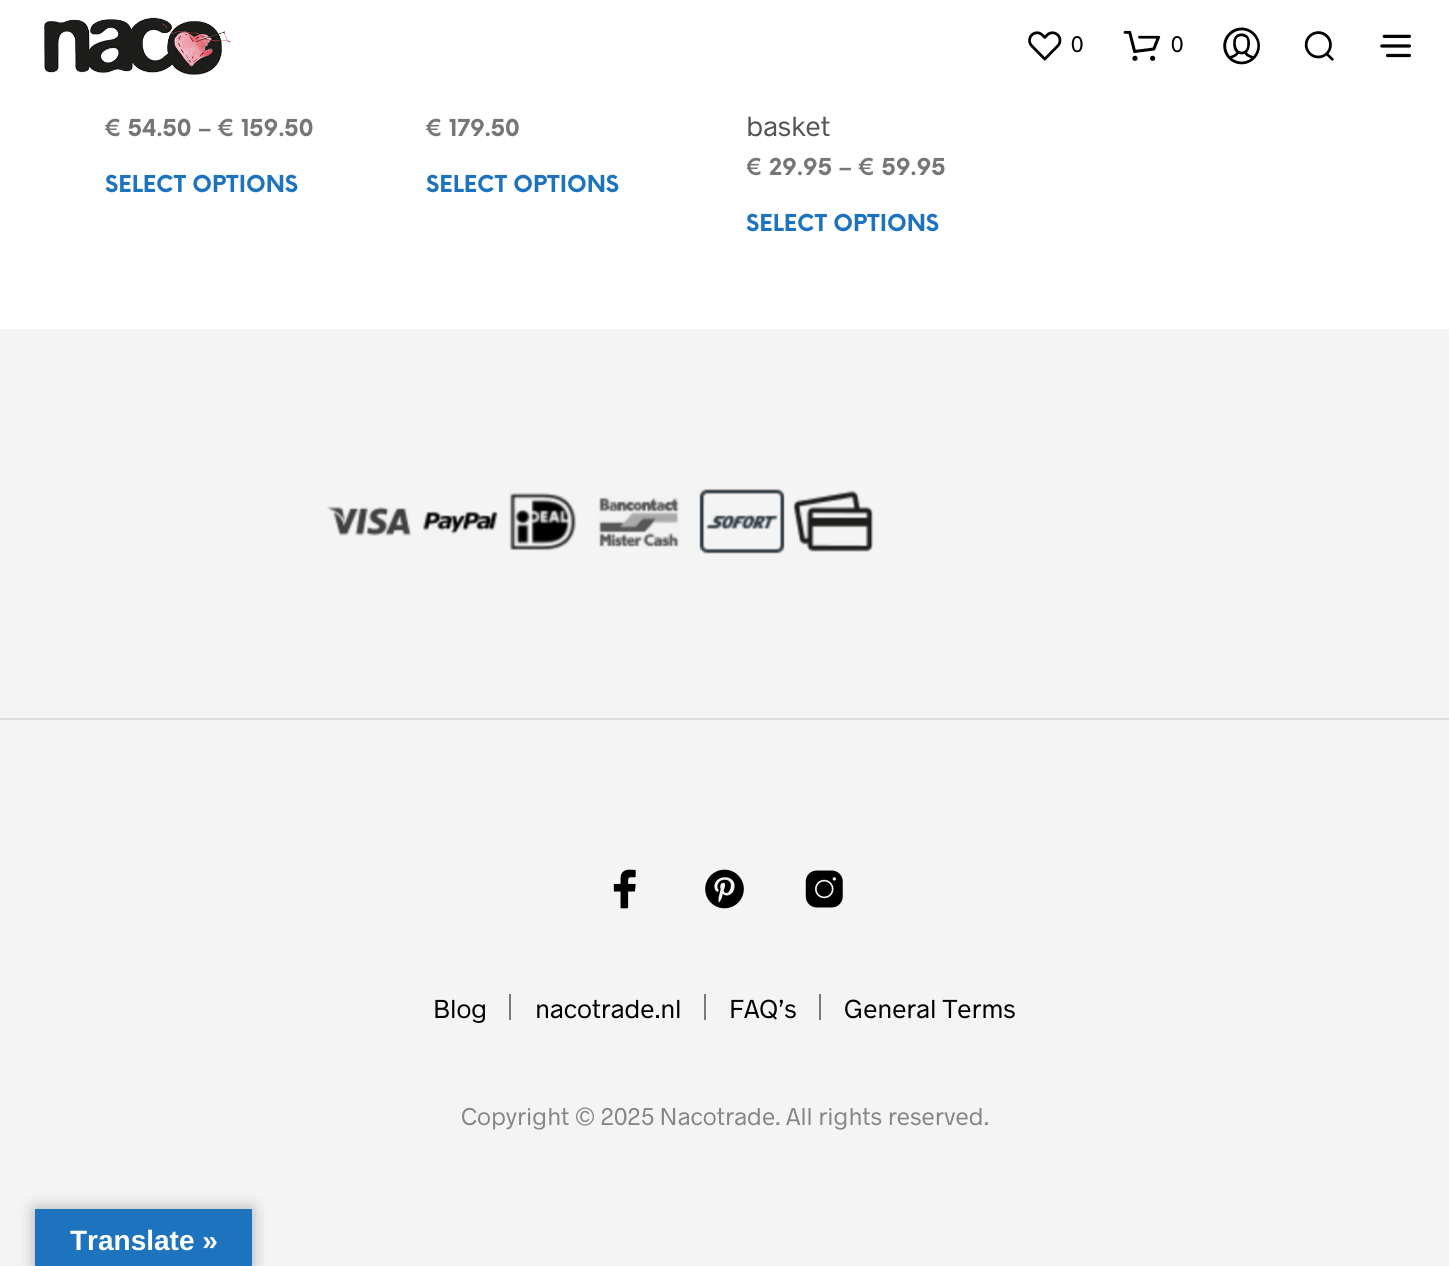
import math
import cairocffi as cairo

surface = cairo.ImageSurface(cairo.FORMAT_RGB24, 1449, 1266)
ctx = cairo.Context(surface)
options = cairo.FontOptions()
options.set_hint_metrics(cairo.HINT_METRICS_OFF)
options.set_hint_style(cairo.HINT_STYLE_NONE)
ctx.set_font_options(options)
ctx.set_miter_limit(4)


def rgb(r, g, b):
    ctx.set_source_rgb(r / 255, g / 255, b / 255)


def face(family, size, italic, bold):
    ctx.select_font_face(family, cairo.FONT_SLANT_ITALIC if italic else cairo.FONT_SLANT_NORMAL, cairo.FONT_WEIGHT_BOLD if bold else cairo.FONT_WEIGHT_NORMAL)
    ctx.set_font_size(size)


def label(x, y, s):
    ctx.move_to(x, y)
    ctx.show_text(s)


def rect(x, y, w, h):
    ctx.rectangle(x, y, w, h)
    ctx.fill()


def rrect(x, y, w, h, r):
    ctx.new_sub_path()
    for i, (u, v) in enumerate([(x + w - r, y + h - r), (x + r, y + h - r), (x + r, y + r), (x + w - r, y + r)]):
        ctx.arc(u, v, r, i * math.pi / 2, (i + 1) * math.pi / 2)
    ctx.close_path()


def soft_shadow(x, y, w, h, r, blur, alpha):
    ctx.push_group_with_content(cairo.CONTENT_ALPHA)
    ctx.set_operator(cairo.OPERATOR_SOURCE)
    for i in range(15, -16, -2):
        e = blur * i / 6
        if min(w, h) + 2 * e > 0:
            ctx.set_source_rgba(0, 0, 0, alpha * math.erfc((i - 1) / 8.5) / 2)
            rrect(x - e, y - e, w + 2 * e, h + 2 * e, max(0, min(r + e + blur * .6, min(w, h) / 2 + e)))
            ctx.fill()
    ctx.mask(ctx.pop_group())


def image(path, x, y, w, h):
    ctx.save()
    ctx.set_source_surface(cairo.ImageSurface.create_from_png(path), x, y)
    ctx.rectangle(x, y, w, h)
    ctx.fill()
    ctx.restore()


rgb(255, 255, 255)
ctx.paint()
image('image0.png', 44, 17, 187, 58)
image('image1.png', 1028, 31, 34, 30)
face('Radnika', 22.75, 0, 0)
rgb(0, 0, 0)
label(1071, 52, '0')
image('image2.png', 1123, 30, 38, 31)
label(1171, 52, '0')
image('image3.png', 1223, 27, 37, 38)
image('image4.png', 1304, 31, 30, 30)
image('image5.png', 1380, 34, 31, 24)
face('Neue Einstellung', 22.75, 0, 1)
rgb(118, 118, 118)
label(105, 136, '€ 54.50 – € 159.50')
rgb(30, 115, 190)
label(105, 192, 'SELECT OPTIONS')
rgb(118, 118, 118)
label(426, 136, '€ 179.50')
rgb(30, 115, 190)
label(426, 192, 'SELECT OPTIONS')
face('Radnika', 28, 0, 0)
rgb(84, 84, 84)
label(746, 136, 'basket')
ctx.save()
ctx.rectangle(747, 145, 277, 58)
ctx.clip()
face('Neue Einstellung', 22.75, 0, 1)
rgb(118, 118, 118)
label(746, 175, '€')
ctx.restore()
face('Neue Einstellung', 22.75, 0, 1)
rgb(118, 118, 118)
label(769, 175, '29.95 – € 59.95')
rgb(30, 115, 190)
label(746, 231, 'SELECT OPTIONS')
rgb(244, 244, 244)
rect(0, 329, 1449, 937)
rgb(221, 221, 221)
rect(0, 718, 1449, 2)
image('image6.png', 327, 506, 85, 31)
image('image7.png', 422, 511, 76, 24)
image('image8.png', 509, 492, 68, 59)
image('image9.png', 598, 497, 82, 51)
image('image10.png', 699, 488, 86, 66)
image('image11.png', 792, 490, 82, 62)
image('image12.png', 613, 869, 23, 40)
image('image13.png', 705, 869, 39, 40)
image('image14.png', 805, 870, 38, 38)
face('Radnika', 26.25, 0, 0)
rgb(0, 0, 0)
label(433, 1018, 'Blog')
rgb(122, 122, 122)
rect(509, 994, 2, 26)
rgb(0, 0, 0)
label(535, 1018, 'nacotrade.nl')
rgb(122, 122, 122)
rect(704, 994, 2, 26)
rgb(0, 0, 0)
label(729, 1018, 'FAQ’s')
rgb(122, 122, 122)
rect(819, 994, 2, 26)
rgb(0, 0, 0)
label(844, 1018, 'General Terms')
face('Radnika', 24.5, 0, 0)
rgb(134, 134, 134)
label(461, 1125, 'Copyright © 2025 Nacotrade. All rights reserved.')
rgb(0, 0, 0)
soft_shadow(35, 1209, 217, 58, 0, 8, 0.3)
rgb(30, 115, 190)
rect(35, 1209, 217, 57)
face('Liberation Sans', 28, 0, 1)
rgb(255, 255, 255)
label(70, 1250, 'Translate »')
surface.write_to_png('render.png')
